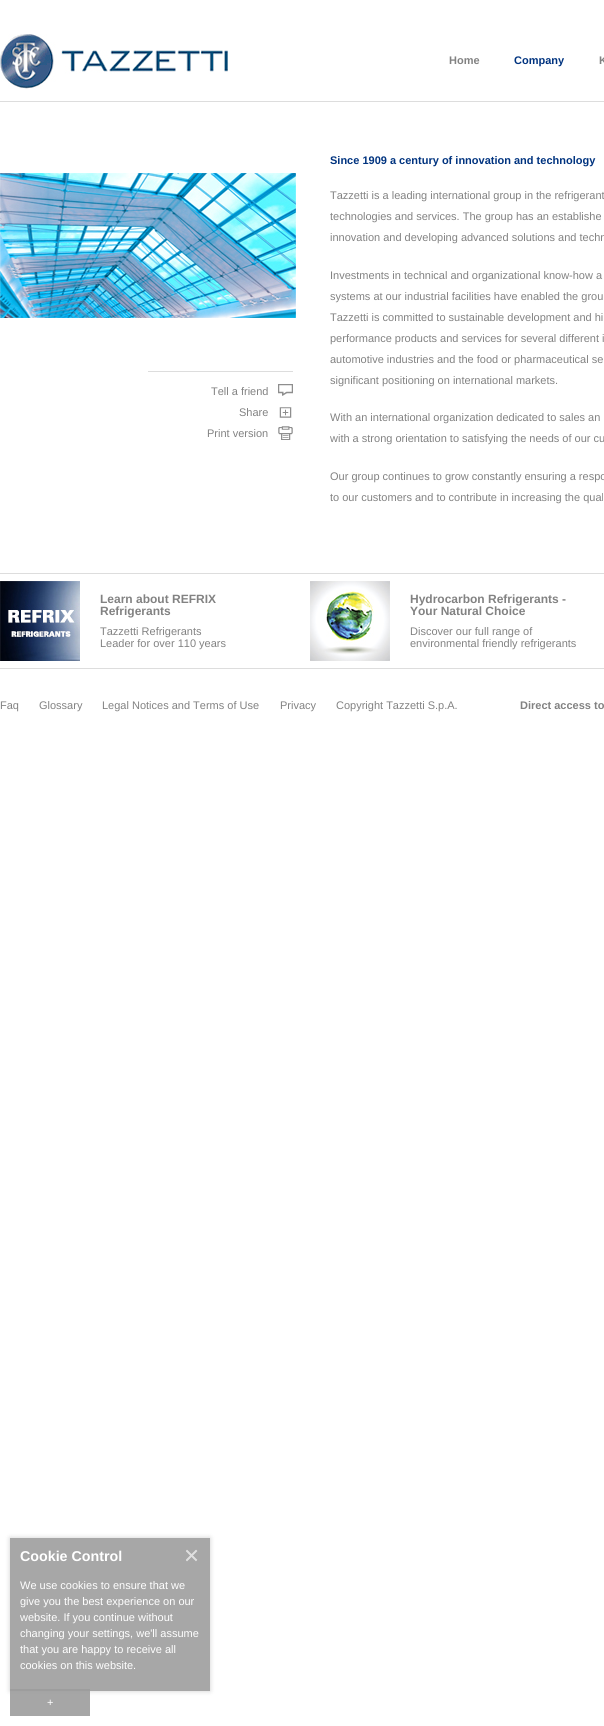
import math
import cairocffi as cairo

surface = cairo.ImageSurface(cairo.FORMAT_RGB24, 604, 1726)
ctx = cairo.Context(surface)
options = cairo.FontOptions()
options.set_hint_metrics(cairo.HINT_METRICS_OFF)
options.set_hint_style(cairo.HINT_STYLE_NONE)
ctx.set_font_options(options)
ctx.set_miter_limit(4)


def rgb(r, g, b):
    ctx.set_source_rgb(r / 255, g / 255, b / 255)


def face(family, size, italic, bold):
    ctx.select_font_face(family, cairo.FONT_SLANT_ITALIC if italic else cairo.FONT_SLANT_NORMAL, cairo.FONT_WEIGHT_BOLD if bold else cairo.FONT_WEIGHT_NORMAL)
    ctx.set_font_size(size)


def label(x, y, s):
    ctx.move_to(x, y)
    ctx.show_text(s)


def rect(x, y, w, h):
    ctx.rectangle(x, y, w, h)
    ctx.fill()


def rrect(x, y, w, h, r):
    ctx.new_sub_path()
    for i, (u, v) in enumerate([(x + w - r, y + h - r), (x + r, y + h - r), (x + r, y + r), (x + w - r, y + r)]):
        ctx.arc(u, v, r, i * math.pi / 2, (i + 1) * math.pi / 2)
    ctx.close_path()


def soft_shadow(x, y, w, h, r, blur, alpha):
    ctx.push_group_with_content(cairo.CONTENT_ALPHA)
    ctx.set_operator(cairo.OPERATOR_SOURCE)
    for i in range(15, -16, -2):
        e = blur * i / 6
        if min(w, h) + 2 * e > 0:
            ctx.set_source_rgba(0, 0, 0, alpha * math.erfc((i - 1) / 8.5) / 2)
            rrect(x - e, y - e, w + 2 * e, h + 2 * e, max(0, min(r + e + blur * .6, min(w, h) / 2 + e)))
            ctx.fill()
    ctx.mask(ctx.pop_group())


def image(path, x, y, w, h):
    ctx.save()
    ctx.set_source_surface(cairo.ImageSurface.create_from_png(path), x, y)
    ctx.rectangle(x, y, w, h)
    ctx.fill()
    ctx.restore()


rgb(255, 255, 255)
ctx.paint()
rgb(221, 221, 221)
rect(0, 101, 604, 1)
image('image0.png', 0, 34, 228, 55)
face('Liberation Sans', 11, 0, 1)
rgb(130, 130, 130)
label(449, 64, 'Home')
rgb(0, 51, 127)
label(514, 64, 'Company')
rgb(130, 130, 130)
label(599, 64, 'K')
image('image1.png', 0, 173, 296, 145)
rgb(221, 221, 221)
rect(148, 371, 145, 1)
image('image2.png', 278, 384, 15, 12)
face('Liberation Sans', 11, 0, 0)
rgb(130, 130, 130)
label(211, 395, 'Tell a friend')
image('image3.png', 279, 407, 13, 11)
label(239, 416, 'Share')
image('image4.png', 278, 426, 15, 14)
label(207, 437, 'Print version')
face('Liberation Sans', 11, 0, 1)
rgb(0, 51, 127)
label(330, 164, 'Since 1909 a century of innovation and technology')
face('Liberation Sans', 11, 0, 0)
rgb(130, 130, 130)
label(330, 199, 'Tazzetti is a leading international group in the refrigerant')
label(330, 220, 'technologies and services. The group has an establishe')
label(330, 241, 'innovation and developing advanced solutions and techn')
label(330, 279, 'Investments in technical and organizational know-how a')
label(330, 300, 'systems at our industrial facilities have enabled the grou')
label(330, 321, 'Tazzetti is committed to sustainable development and hi')
label(330, 342, 'performance products and services for several different i')
label(330, 363, 'automotive industries and the food or pharmaceutical se')
label(330, 384, 'significant positioning on international markets.')
label(330, 421, 'With an international organization dedicated to sales an')
label(330, 442, 'with a strong orientation to satisfying the needs of our cu')
label(330, 480, 'Our group continues to grow constantly ensuring a respo')
label(330, 501, 'to our customers and to contribute in increasing the qual')
rgb(221, 221, 221)
rect(0, 573, 604, 1)
rect(0, 668, 604, 1)
image('image5.png', 0, 581, 80, 80)
face('Liberation Sans', 12, 0, 1)
rgb(130, 130, 130)
label(100, 603, 'Learn about REFRIX')
label(100, 615, 'Refrigerants')
face('Liberation Sans', 11, 0, 0)
label(100, 635, 'Tazzetti Refrigerants')
label(100, 647, 'Leader for over 110 years')
image('image6.png', 310, 581, 80, 80)
face('Liberation Sans', 12, 0, 1)
label(410, 603, 'Hydrocarbon Refrigerants -')
label(410, 615, 'Your Natural Choice')
face('Liberation Sans', 11, 0, 0)
label(410, 635, 'Discover our full range of')
label(410, 647, 'environmental friendly refrigerants')
label(0, 709, 'Faq')
label(39, 709, 'Glossary')
label(102, 709, 'Legal Notices and Terms of Use')
label(280, 709, 'Privacy')
label(336, 709, 'Copyright Tazzetti S.p.A.')
face('Liberation Sans', 11, 0, 1)
label(520, 709, 'Direct access to')
rgb(93, 93, 93)
soft_shadow(10, 1538, 200, 153, 0, 2.5, 0.3)
rgb(167, 167, 167)
rect(10, 1538, 200, 153)
face('Liberation Sans', 14.25, 0, 1)
rgb(255, 255, 255)
label(20, 1561, 'Cookie Control')
image('image7.png', 186, 1549, 12, 13)
face('Liberation Sans', 11, 0, 0)
label(20, 1589, 'We use cookies to ensure that we')
label(20, 1605, 'give you the best experience on our')
label(20, 1621, 'website. If you continue without')
label(20, 1637, 'changing your settings, we\'ll assume')
label(20, 1653, 'that you are happy to receive all')
label(20, 1669, 'cookies on this website.')
ctx.set_source_rgba(0.616, 0.616, 0.616, 0.9)
rect(10, 1689, 80, 27)
rgb(255, 255, 255)
label(47, 1706, '+')
surface.write_to_png('render.png')
